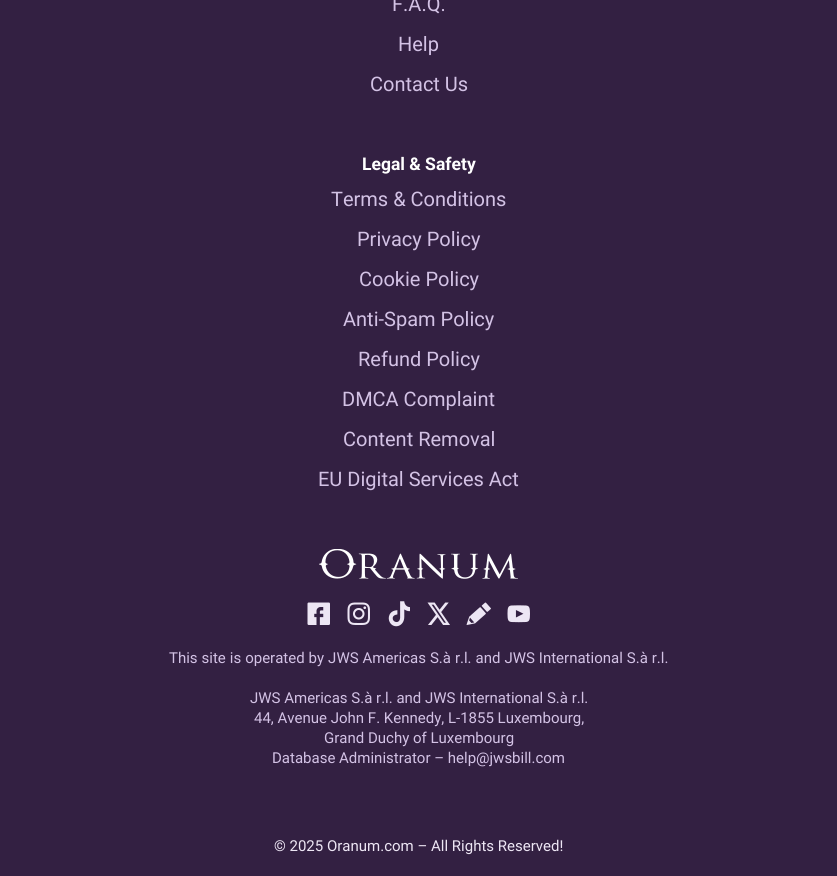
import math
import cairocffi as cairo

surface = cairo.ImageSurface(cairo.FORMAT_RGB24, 837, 876)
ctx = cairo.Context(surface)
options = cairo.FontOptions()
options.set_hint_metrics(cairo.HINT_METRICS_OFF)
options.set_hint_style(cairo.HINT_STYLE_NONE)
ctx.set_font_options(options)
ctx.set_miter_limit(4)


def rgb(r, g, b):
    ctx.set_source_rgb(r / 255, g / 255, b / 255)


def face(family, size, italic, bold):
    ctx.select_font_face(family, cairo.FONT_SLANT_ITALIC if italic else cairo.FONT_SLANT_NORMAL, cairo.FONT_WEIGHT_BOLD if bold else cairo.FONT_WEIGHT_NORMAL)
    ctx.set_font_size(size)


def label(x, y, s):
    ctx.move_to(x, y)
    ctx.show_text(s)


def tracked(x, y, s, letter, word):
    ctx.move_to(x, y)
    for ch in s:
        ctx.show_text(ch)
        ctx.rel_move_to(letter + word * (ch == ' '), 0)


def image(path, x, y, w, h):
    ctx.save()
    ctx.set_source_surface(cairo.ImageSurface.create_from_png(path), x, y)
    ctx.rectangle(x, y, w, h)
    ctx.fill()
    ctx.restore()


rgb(51, 32, 66)
ctx.paint()
face('Roboto', 20, 0, 0)
rgb(211, 194, 229)
label(392, 11, 'F.A.Q.')
label(398, 51, 'Help')
label(370, 91, 'Contact Us')
face('Roboto', 17.5, 0, 1)
rgb(255, 255, 255)
label(362, 170, 'Legal & Safety')
face('Roboto', 20, 0, 0)
rgb(211, 194, 229)
label(331, 206, 'Terms & Conditions')
label(357, 246, 'Privacy Policy')
label(359, 286, 'Cookie Policy')
label(343, 326, 'Anti-Spam Policy')
label(358, 366, 'Refund Policy')
label(342, 406, 'DMCA Complaint')
label(343, 446, 'Content Removal')
label(318, 486, 'EU Digital Services Act')
image('image0.png', 319, 549, 199, 30)
image('image1.png', 307, 602, 23, 23)
image('image2.png', 347, 602, 23, 23)
image('image3.png', 388, 601, 22, 26)
image('image4.png', 427, 602, 23, 23)
image('image5.png', 466, 602, 25, 23)
image('image6.png', 507, 605, 23, 18)
face('Roboto', 15, 0, 0)
tracked(169, 663, 'This site is operated by JWS Americas S.à r.l. and JWS International S.à r.l.', 0, 0.25)
label(250, 703, 'JWS Americas S.à r.l. and JWS International S.à r.l.')
label(254, 723, '44, Avenue John F. Kennedy, L-1855 Luxembourg,')
label(324, 743, 'Grand Duchy of Luxembourg')
label(272, 763, 'Database Administrator – help@jwsbill.com')
rgb(237, 230, 244)
label(274, 851, '© 2025 Oranum.com – All Rights Reserved!')
surface.write_to_png('render.png')
